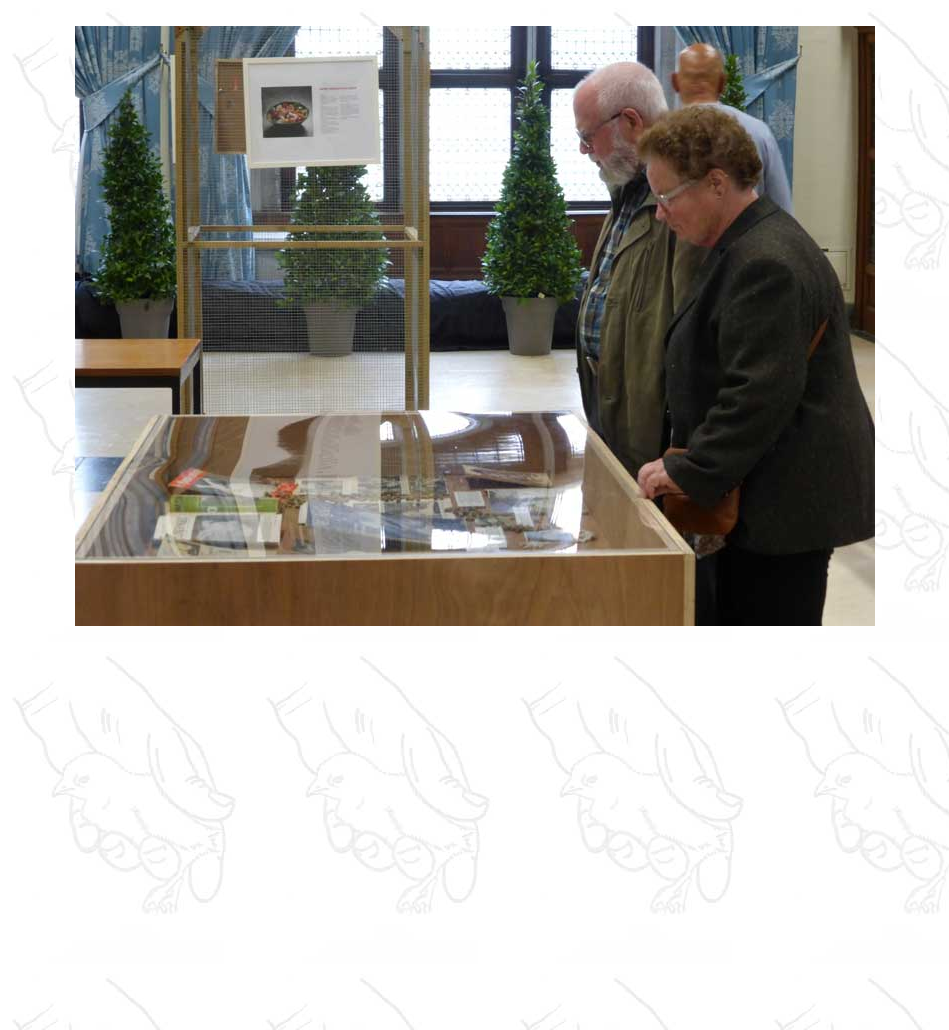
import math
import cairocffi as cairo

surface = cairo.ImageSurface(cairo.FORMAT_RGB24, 949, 1030)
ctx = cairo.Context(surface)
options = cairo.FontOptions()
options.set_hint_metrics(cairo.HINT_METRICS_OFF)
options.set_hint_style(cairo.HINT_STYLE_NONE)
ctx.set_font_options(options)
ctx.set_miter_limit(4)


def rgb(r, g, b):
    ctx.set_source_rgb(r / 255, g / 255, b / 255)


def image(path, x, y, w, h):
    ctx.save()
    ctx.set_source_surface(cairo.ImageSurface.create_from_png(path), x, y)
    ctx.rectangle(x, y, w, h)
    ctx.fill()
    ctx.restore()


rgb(255, 255, 255)
ctx.paint()
image('image0.png', 12, 8, 937, 1022)
image('image1.png', 75, 26, 800, 600)
surface.write_to_png('render.png')
